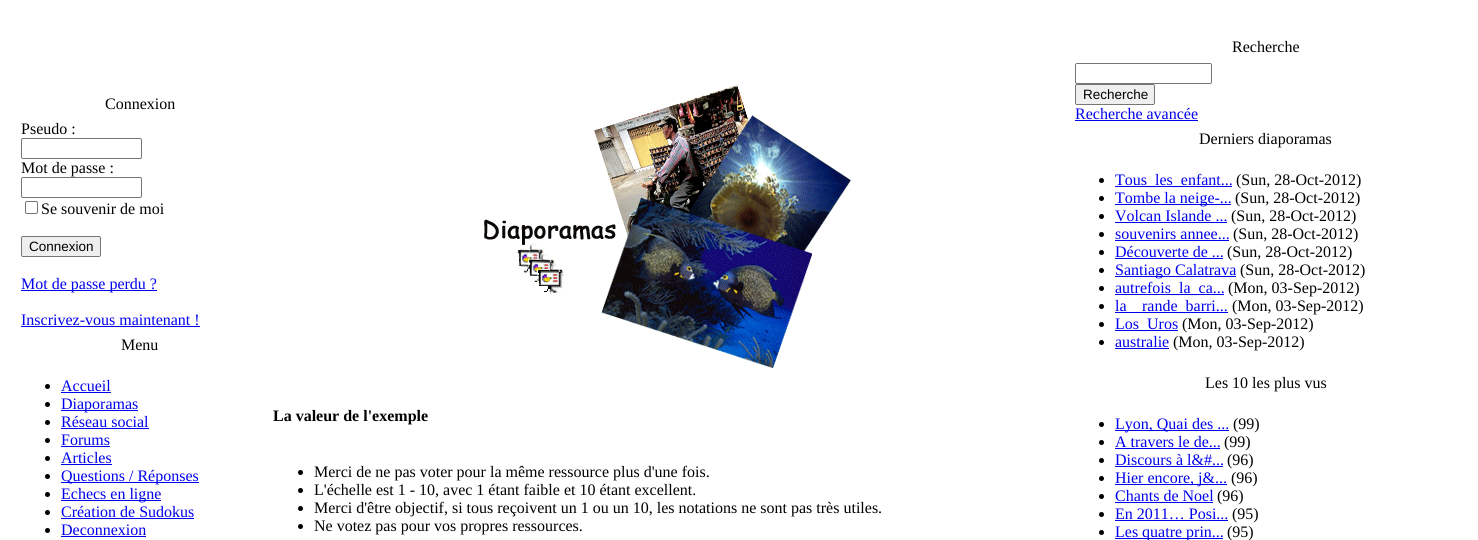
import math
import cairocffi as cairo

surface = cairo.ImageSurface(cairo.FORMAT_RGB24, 1478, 540)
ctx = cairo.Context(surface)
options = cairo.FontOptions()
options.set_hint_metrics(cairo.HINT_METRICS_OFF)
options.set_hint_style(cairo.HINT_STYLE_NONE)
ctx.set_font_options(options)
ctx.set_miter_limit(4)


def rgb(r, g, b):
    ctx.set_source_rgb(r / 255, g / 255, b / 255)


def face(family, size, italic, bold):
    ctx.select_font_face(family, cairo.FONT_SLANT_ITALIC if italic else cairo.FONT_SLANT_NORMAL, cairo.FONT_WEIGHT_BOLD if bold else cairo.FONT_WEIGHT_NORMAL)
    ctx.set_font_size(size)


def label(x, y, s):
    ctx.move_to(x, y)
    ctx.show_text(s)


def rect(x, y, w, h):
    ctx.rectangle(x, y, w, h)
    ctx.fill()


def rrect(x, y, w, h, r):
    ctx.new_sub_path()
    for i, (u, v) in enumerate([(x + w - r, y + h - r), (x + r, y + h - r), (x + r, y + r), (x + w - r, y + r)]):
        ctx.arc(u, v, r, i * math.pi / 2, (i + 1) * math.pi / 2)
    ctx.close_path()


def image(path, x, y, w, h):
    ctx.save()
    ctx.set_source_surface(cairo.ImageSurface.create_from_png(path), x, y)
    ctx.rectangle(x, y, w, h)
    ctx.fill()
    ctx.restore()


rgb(255, 255, 255)
ctx.paint()
face('Liberation Serif', 16, 0, 0)
rgb(0, 0, 0)
label(105, 109, 'Connexion')
label(21, 134, 'Pseudo :')
rrect(21.5, 138.5, 120, 20, 1.5)
rgb(118, 118, 118)
ctx.set_line_width(1)
ctx.stroke()
rgb(0, 0, 0)
label(21, 173, 'Mot de passe :')
rrect(21.5, 177.5, 120, 20, 1.5)
rgb(118, 118, 118)
ctx.stroke()
rrect(25.5, 201.5, 12, 12, 1.5)
ctx.stroke()
rgb(0, 0, 0)
label(41, 214, 'Se souvenir de moi')
rgb(239, 239, 239)
rrect(21.5, 236.5, 79, 20, 1.5)
ctx.fill_preserve()
rgb(118, 118, 118)
ctx.stroke()
face('Liberation Sans', 13.5, 0, 0)
rgb(0, 0, 0)
label(29, 251, 'Connexion')
rgb(0, 0, 238)
rect(21, 290, 136, 1)
face('Liberation Serif', 16, 0, 0)
label(21, 289, 'Mot de passe perdu ?')
label(21, 325, 'Inscrivez-vous maintenant !')
rect(21, 326, 179, 1)
rgb(0, 0, 0)
label(121, 350, 'Menu')
ctx.new_path()
ctx.arc(47.5, 386.5, 2.5, 0, 2 * math.pi)
ctx.fill()
rgb(0, 0, 238)
label(61, 391, 'Accueil')
rect(61, 392, 50, 1)
rgb(0, 0, 0)
ctx.new_path()
ctx.arc(47.5, 404.5, 2.5, 0, 2 * math.pi)
ctx.fill()
rgb(0, 0, 238)
rect(61, 410, 77, 1)
label(61, 409, 'Diaporamas')
rgb(0, 0, 0)
ctx.new_path()
ctx.arc(47.5, 422.5, 2.5, 0, 2 * math.pi)
ctx.fill()
rgb(0, 0, 238)
label(61, 427, 'Réseau social')
rect(61, 428, 88, 1)
rgb(0, 0, 0)
ctx.new_path()
ctx.arc(47.5, 440.5, 2.5, 0, 2 * math.pi)
ctx.fill()
rgb(0, 0, 238)
label(61, 445, 'Forums')
rect(61, 446, 49, 1)
rgb(0, 0, 0)
ctx.new_path()
ctx.arc(47.5, 458.5, 2.5, 0, 2 * math.pi)
ctx.fill()
rgb(0, 0, 238)
label(61, 463, 'Articles')
rect(61, 464, 51, 1)
rgb(0, 0, 0)
ctx.new_path()
ctx.arc(47.5, 476.5, 2.5, 0, 2 * math.pi)
ctx.fill()
rgb(0, 0, 238)
rect(61, 482, 138, 1)
label(61, 481, 'Questions / Réponses')
rgb(0, 0, 0)
ctx.new_path()
ctx.arc(47.5, 494.5, 2.5, 0, 2 * math.pi)
ctx.fill()
rgb(0, 0, 238)
rect(61, 500, 100, 1)
label(61, 499, 'Echecs en ligne')
rgb(0, 0, 0)
ctx.new_path()
ctx.arc(47.5, 512.5, 2.5, 0, 2 * math.pi)
ctx.fill()
rgb(0, 0, 238)
label(61, 517, 'Création de Sudokus')
rect(61, 518, 133, 1)
rgb(0, 0, 0)
ctx.new_path()
ctx.arc(47.5, 530.5, 2.5, 0, 2 * math.pi)
ctx.fill()
rgb(0, 0, 238)
label(61, 535, 'Deconnexion')
rect(61, 536, 85, 1)
image('image0.png', 484, 85, 367, 283)
face('Liberation Serif', 16, 0, 1)
rgb(0, 0, 0)
label(273, 421, 'La valeur de l\'exemple')
ctx.new_path()
ctx.arc(300.5, 472.5, 2.5, 0, 2 * math.pi)
ctx.fill()
face('Liberation Serif', 16, 0, 0)
label(314, 477, 'Merci de ne pas voter pour la même ressource plus d\'une fois.')
ctx.new_path()
ctx.arc(300.5, 490.5, 2.5, 0, 2 * math.pi)
ctx.fill()
label(314, 495, 'L\'échelle est 1 - 10, avec 1 étant faible et 10 étant excellent.')
ctx.new_path()
ctx.arc(300.5, 508.5, 2.5, 0, 2 * math.pi)
ctx.fill()
label(314, 513, 'Merci d\'être objectif, si tous reçoivent un 1 ou un 10, les notations ne sont pas très utiles.')
ctx.new_path()
ctx.arc(300.5, 526.5, 2.5, 0, 2 * math.pi)
ctx.fill()
label(314, 531, 'Ne votez pas pour vos propres ressources.')
label(1232, 52, 'Recherche')
rrect(1075.5, 63.5, 136, 20, 1.5)
rgb(118, 118, 118)
ctx.stroke()
rgb(239, 239, 239)
rrect(1075.5, 84.5, 79, 20, 1.5)
ctx.fill_preserve()
rgb(118, 118, 118)
ctx.stroke()
face('Liberation Sans', 13.5, 0, 0)
rgb(0, 0, 0)
label(1083, 99, 'Recherche')
face('Liberation Serif', 16, 0, 0)
rgb(0, 0, 238)
label(1075, 119, 'Recherche avancée')
rect(1075, 120, 123, 1)
rgb(0, 0, 0)
label(1199, 144, 'Derniers diaporamas')
ctx.new_path()
ctx.arc(1101.5, 180.5, 2.5, 0, 2 * math.pi)
ctx.fill()
rgb(0, 0, 238)
rect(1115, 186, 117, 1)
label(1115, 185, 'Tous_les_enfant...')
rgb(0, 0, 0)
label(1236, 185, '(Sun, 28-Oct-2012)')
ctx.new_path()
ctx.arc(1101.5, 198.5, 2.5, 0, 2 * math.pi)
ctx.fill()
rgb(0, 0, 238)
rect(1115, 204, 116, 1)
label(1115, 203, 'Tombe la neige-...')
rgb(0, 0, 0)
label(1235, 203, '(Sun, 28-Oct-2012)')
ctx.new_path()
ctx.arc(1101.5, 216.5, 2.5, 0, 2 * math.pi)
ctx.fill()
rgb(0, 0, 238)
label(1115, 221, 'Volcan Islande ...')
rect(1115, 222, 112, 1)
rgb(0, 0, 0)
label(1231, 221, '(Sun, 28-Oct-2012)')
ctx.new_path()
ctx.arc(1101.5, 234.5, 2.5, 0, 2 * math.pi)
ctx.fill()
rgb(0, 0, 238)
label(1115, 239, 'souvenirs annee...')
rect(1115, 240, 114, 1)
rgb(0, 0, 0)
label(1233, 239, '(Sun, 28-Oct-2012)')
ctx.new_path()
ctx.arc(1101.5, 252.5, 2.5, 0, 2 * math.pi)
ctx.fill()
rgb(0, 0, 238)
label(1115, 257, 'Découverte de ...')
rect(1115, 258, 108, 1)
rgb(0, 0, 0)
label(1227, 257, '(Sun, 28-Oct-2012)')
ctx.new_path()
ctx.arc(1101.5, 270.5, 2.5, 0, 2 * math.pi)
ctx.fill()
rgb(0, 0, 238)
rect(1115, 276, 121, 1)
label(1115, 275, 'Santiago Calatrava')
rgb(0, 0, 0)
label(1240, 275, '(Sun, 28-Oct-2012)')
ctx.new_path()
ctx.arc(1101.5, 288.5, 2.5, 0, 2 * math.pi)
ctx.fill()
rgb(0, 0, 238)
rect(1115, 294, 109, 1)
label(1115, 293, 'autrefois_la_ca...')
rgb(0, 0, 0)
label(1228, 293, '(Mon, 03-Sep-2012)')
ctx.new_path()
ctx.arc(1101.5, 306.5, 2.5, 0, 2 * math.pi)
ctx.fill()
rgb(0, 0, 238)
label(1115, 311, 'la')
rect(1115, 312, 113, 1)
label(1142, 311, 'rande_barri...')
rgb(0, 0, 0)
label(1232, 311, '(Mon, 03-Sep-2012)')
ctx.new_path()
ctx.arc(1101.5, 324.5, 2.5, 0, 2 * math.pi)
ctx.fill()
rgb(0, 0, 238)
rect(1115, 330, 63, 1)
label(1115, 329, 'Los_Uros')
rgb(0, 0, 0)
label(1182, 329, '(Mon, 03-Sep-2012)')
ctx.new_path()
ctx.arc(1101.5, 342.5, 2.5, 0, 2 * math.pi)
ctx.fill()
rgb(0, 0, 238)
label(1115, 347, 'australie')
rect(1115, 348, 54, 1)
rgb(0, 0, 0)
label(1173, 347, '(Mon, 03-Sep-2012)')
label(1205, 388, 'Les 10 les plus vus')
ctx.new_path()
ctx.arc(1101.5, 424.5, 2.5, 0, 2 * math.pi)
ctx.fill()
rgb(0, 0, 238)
rect(1115, 430, 114, 1)
label(1115, 429, 'Lyon, Quai des ...')
rgb(0, 0, 0)
label(1233, 429, '(99)')
ctx.new_path()
ctx.arc(1101.5, 442.5, 2.5, 0, 2 * math.pi)
ctx.fill()
rgb(0, 0, 238)
label(1115, 447, 'A travers le de...')
rect(1115, 448, 105, 1)
rgb(0, 0, 0)
label(1224, 447, '(99)')
ctx.new_path()
ctx.arc(1101.5, 460.5, 2.5, 0, 2 * math.pi)
ctx.fill()
rgb(0, 0, 238)
label(1115, 465, 'Discours à l&#...')
rect(1115, 466, 108, 1)
rgb(0, 0, 0)
label(1227, 465, '(96)')
ctx.new_path()
ctx.arc(1101.5, 478.5, 2.5, 0, 2 * math.pi)
ctx.fill()
rgb(0, 0, 238)
rect(1115, 484, 112, 1)
label(1115, 483, 'Hier encore, j&...')
rgb(0, 0, 0)
label(1231, 483, '(96)')
ctx.new_path()
ctx.arc(1101.5, 496.5, 2.5, 0, 2 * math.pi)
ctx.fill()
rgb(0, 0, 238)
label(1115, 501, 'Chants de Noel')
rect(1115, 502, 98, 1)
rgb(0, 0, 0)
label(1217, 501, '(96)')
ctx.new_path()
ctx.arc(1101.5, 514.5, 2.5, 0, 2 * math.pi)
ctx.fill()
rgb(0, 0, 238)
label(1115, 519, 'En 2011… Posi...')
rect(1115, 520, 113, 1)
rgb(0, 0, 0)
label(1232, 519, '(95)')
ctx.new_path()
ctx.arc(1101.5, 532.5, 2.5, 0, 2 * math.pi)
ctx.fill()
rgb(0, 0, 238)
rect(1115, 538, 108, 1)
label(1115, 537, 'Les quatre prin...')
rgb(0, 0, 0)
label(1227, 537, '(95)')
surface.write_to_png('render.png')
